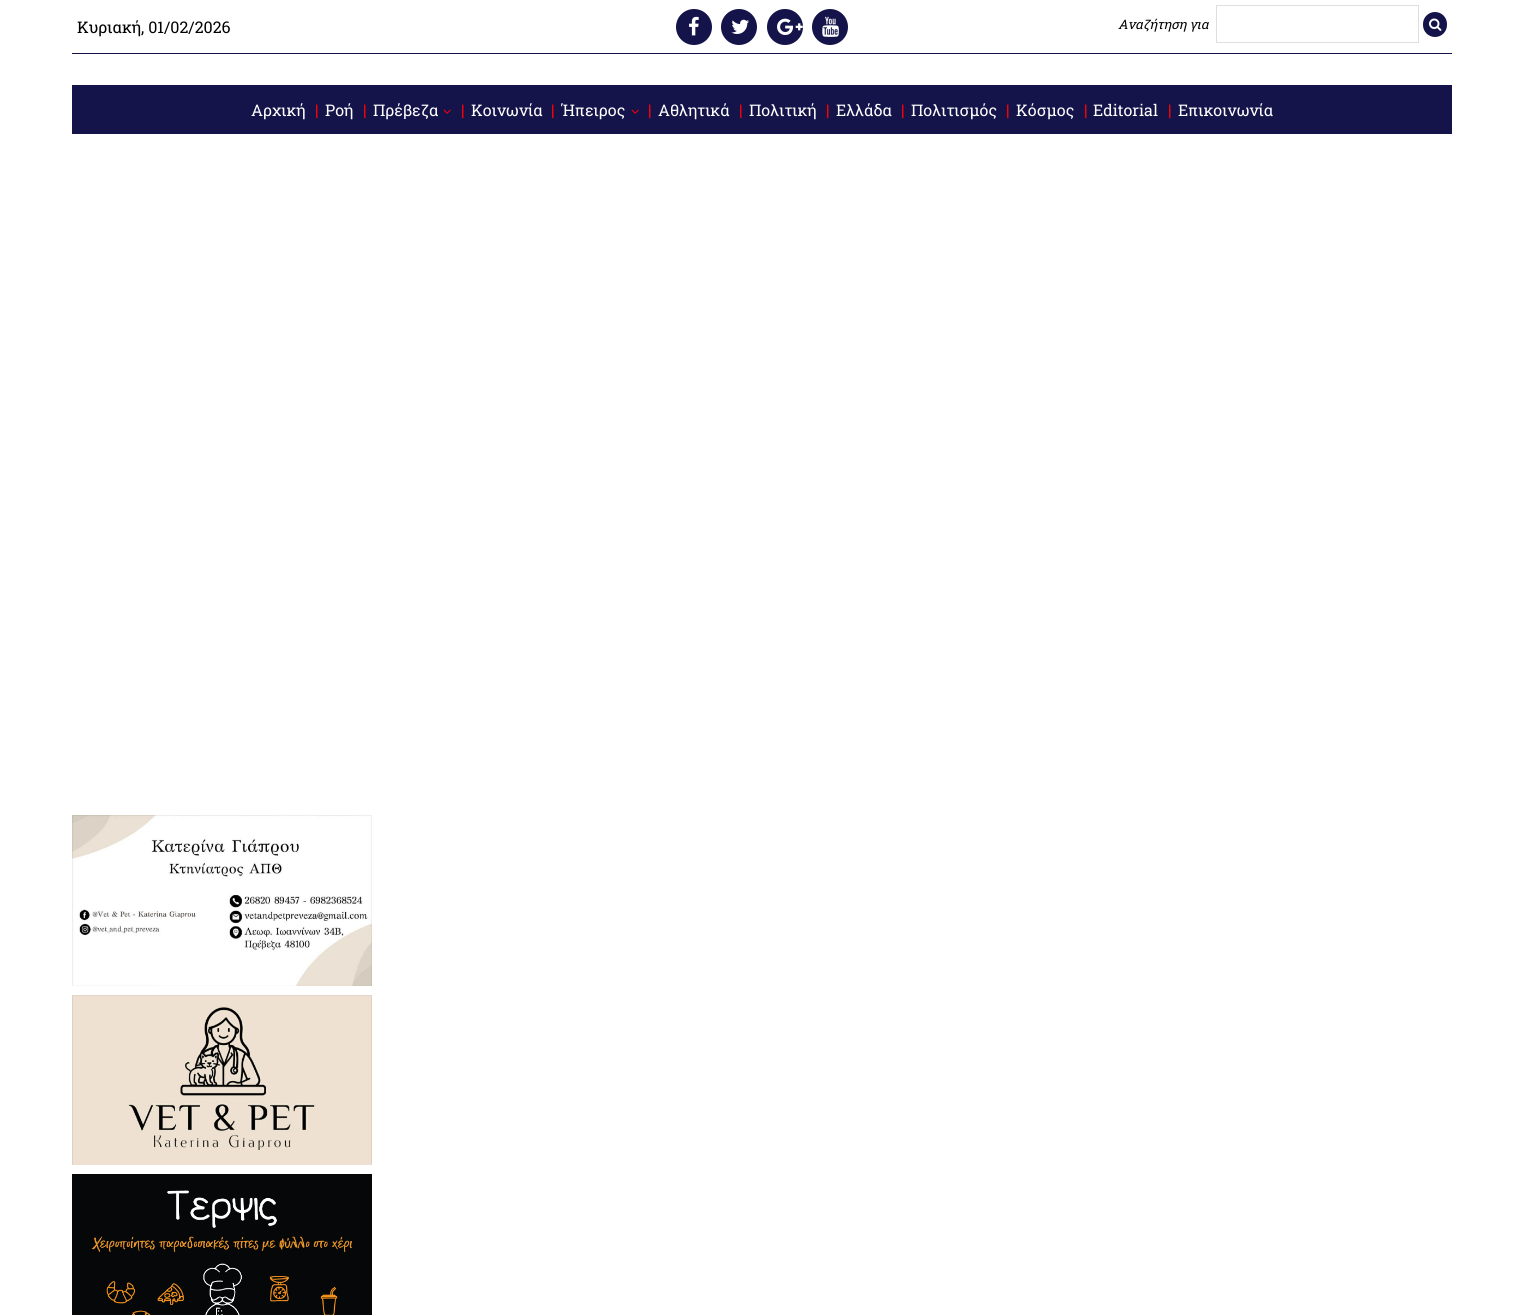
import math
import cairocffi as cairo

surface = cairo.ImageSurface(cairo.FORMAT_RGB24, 1524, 1315)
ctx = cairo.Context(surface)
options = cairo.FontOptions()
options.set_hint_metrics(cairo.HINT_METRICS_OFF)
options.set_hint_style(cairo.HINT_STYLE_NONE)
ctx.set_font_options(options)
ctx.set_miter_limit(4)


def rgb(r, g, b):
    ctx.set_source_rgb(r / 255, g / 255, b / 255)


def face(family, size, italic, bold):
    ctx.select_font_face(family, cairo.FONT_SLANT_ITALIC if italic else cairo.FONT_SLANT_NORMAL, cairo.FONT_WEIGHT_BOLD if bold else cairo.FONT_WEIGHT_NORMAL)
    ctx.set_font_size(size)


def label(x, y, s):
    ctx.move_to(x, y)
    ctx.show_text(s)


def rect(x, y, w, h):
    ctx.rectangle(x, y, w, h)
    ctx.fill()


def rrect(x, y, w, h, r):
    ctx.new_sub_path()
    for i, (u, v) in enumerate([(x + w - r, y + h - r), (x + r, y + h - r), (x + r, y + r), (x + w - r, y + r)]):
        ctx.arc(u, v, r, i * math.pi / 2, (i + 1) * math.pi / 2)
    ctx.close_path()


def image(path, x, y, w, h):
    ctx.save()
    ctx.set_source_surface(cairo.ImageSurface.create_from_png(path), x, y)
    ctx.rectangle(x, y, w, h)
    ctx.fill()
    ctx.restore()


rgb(255, 255, 255)
ctx.paint()
rgb(20, 20, 74)
rect(72, 53, 1380, 1)
face('Roboto Slab', 16, 0, 0)
rgb(0, 0, 0)
label(77, 33, 'Κυριακή, 01/02/2026')
rgb(20, 20, 74)
ctx.new_path()
ctx.arc(694, 27, 18, 0, 2 * math.pi)
ctx.fill()
image('image0.png', 689, 16, 10, 20)
ctx.arc(739, 27, 18, 0, 2 * math.pi)
ctx.fill()
image('image1.png', 731, 19, 18, 15)
ctx.arc(785, 27, 18, 0, 2 * math.pi)
ctx.fill()
image('image2.png', 777, 18, 26, 17)
ctx.arc(830, 27, 18, 0, 2 * math.pi)
ctx.fill()
image('image3.png', 822, 16, 17, 21)
face('Roboto Slab', 13, 1, 0)
rgb(0, 0, 0)
label(1118, 29, 'Αναζήτηση για')
ctx.rectangle(1216.5, 5.5, 202, 37)
rgb(222, 222, 222)
ctx.set_line_width(1)
ctx.stroke()
rgb(20, 20, 74)
rrect(1423, 12, 24, 25, 12)
ctx.fill()
image('image4.png', 1429, 18, 13, 13)
rect(72, 85, 1380, 49)
face('Roboto Slab', 16, 0, 0)
rgb(255, 255, 255)
label(251, 116, 'Αρχική')
face('Roboto Slab', 16, 0, 1)
rgb(255, 0, 0)
label(315, 116, '|')
face('Roboto Slab', 16, 0, 0)
rgb(255, 255, 255)
label(325, 116, 'Ροή')
face('Roboto Slab', 16, 0, 1)
rgb(255, 0, 0)
label(363, 116, '|')
face('Roboto Slab', 16, 0, 0)
rgb(255, 255, 255)
label(373, 116, 'Πρέβεζα')
image('image5.png', 443, 109, 8, 5)
face('Roboto Slab', 16, 0, 1)
rgb(255, 0, 0)
label(461, 116, '|')
face('Roboto Slab', 16, 0, 0)
rgb(255, 255, 255)
label(471, 116, 'Κοινωνία')
face('Roboto Slab', 16, 0, 1)
rgb(255, 0, 0)
label(551, 116, '|')
face('Roboto Slab', 16, 0, 0)
rgb(255, 255, 255)
label(561, 116, 'Ήπειρος')
image('image5.png', 631, 109, 8, 5)
face('Roboto Slab', 16, 0, 1)
rgb(255, 0, 0)
label(648, 116, '|')
face('Roboto Slab', 16, 0, 0)
rgb(255, 255, 255)
label(658, 116, 'Αθλητικά')
face('Roboto Slab', 16, 0, 1)
rgb(255, 0, 0)
label(739, 116, '|')
face('Roboto Slab', 16, 0, 0)
rgb(255, 255, 255)
label(749, 116, 'Πολιτική')
face('Roboto Slab', 16, 0, 1)
rgb(255, 0, 0)
label(826, 116, '|')
face('Roboto Slab', 16, 0, 0)
rgb(255, 255, 255)
label(836, 116, 'Ελλάδα')
face('Roboto Slab', 16, 0, 1)
rgb(255, 0, 0)
label(901, 116, '|')
face('Roboto Slab', 16, 0, 0)
rgb(255, 255, 255)
label(911, 116, 'Πολιτισμός')
face('Roboto Slab', 16, 0, 1)
rgb(255, 0, 0)
label(1006, 116, '|')
face('Roboto Slab', 16, 0, 0)
rgb(255, 255, 255)
label(1016, 116, 'Κόσμος')
face('Roboto Slab', 16, 0, 1)
rgb(255, 0, 0)
label(1084, 116, '|')
face('Roboto Slab', 16, 0, 0)
rgb(255, 255, 255)
label(1093, 116, 'Editorial')
face('Roboto Slab', 16, 0, 1)
rgb(255, 0, 0)
label(1168, 116, '|')
face('Roboto Slab', 16, 0, 0)
rgb(255, 255, 255)
label(1178, 116, 'Επικοινωνία')
image('image6.png', 72, 815, 300, 171)
image('image7.png', 72, 995, 300, 170)
image('image8.png', 72, 1174, 300, 141)
surface.write_to_png('render.png')
